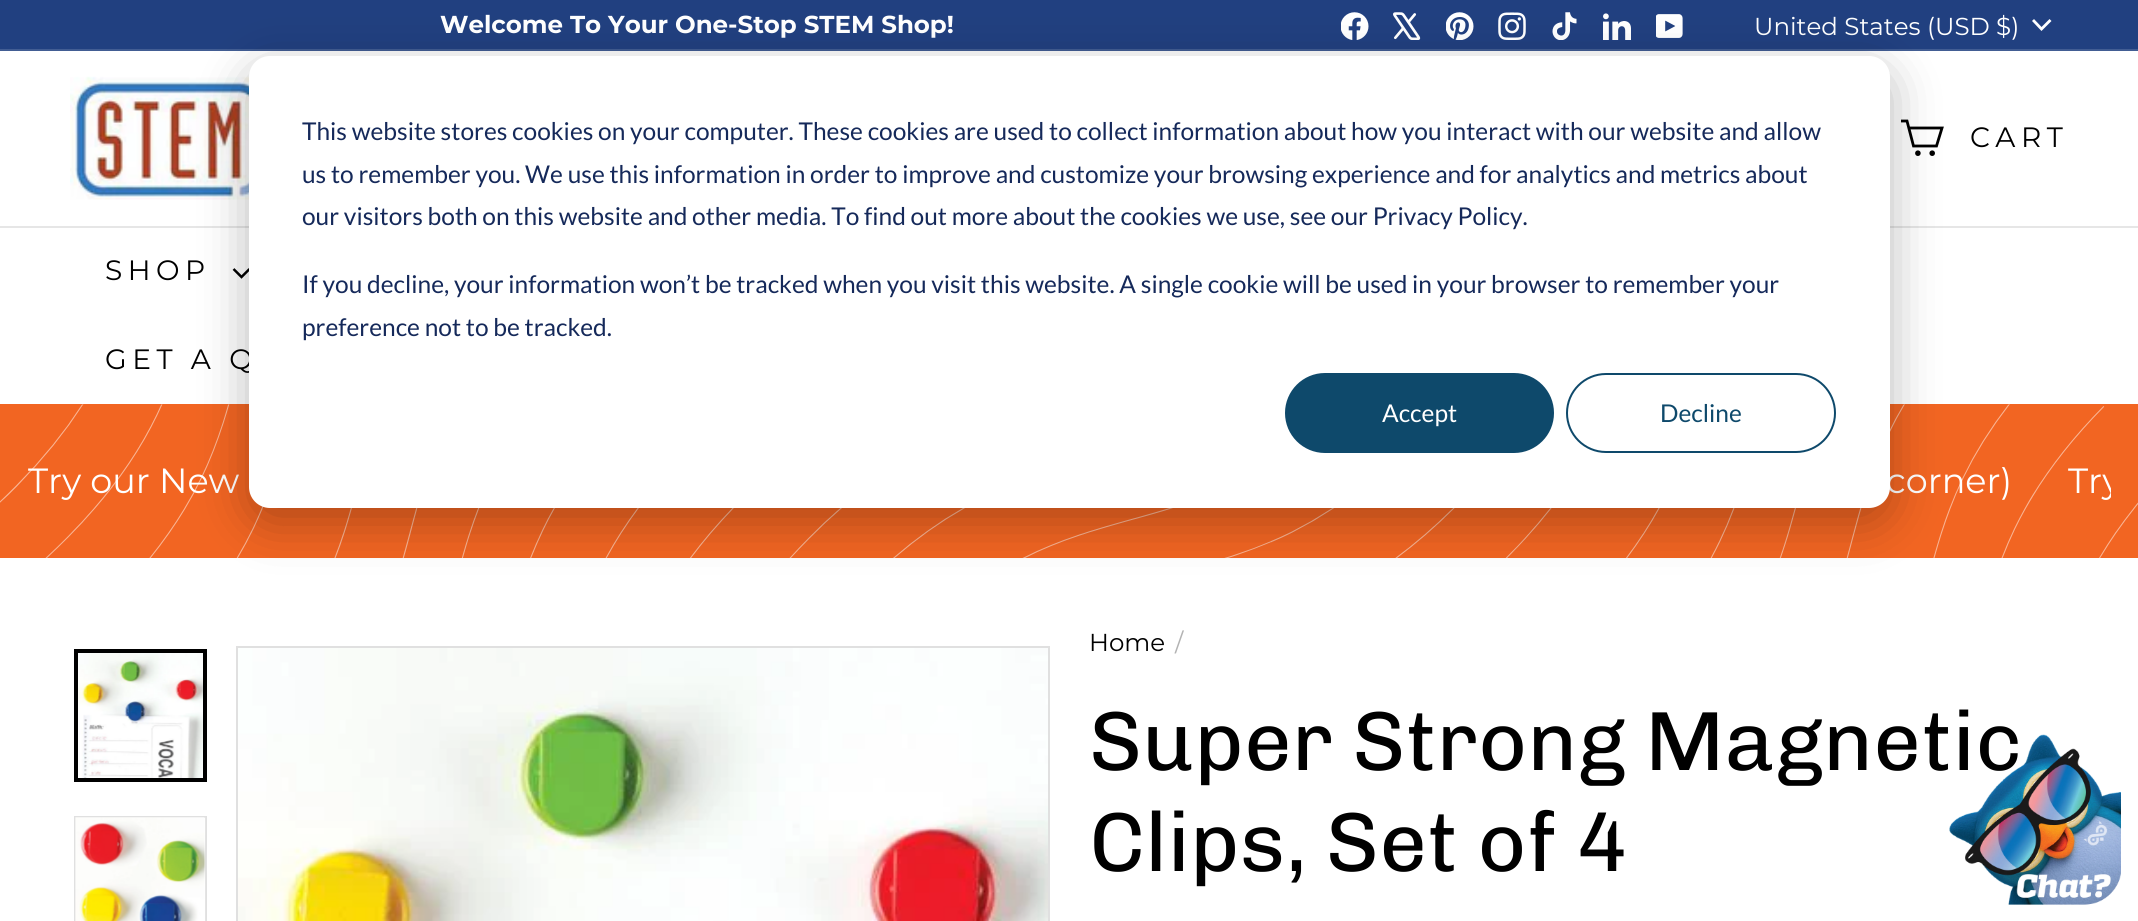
import math
import cairocffi as cairo

surface = cairo.ImageSurface(cairo.FORMAT_RGB24, 2138, 921)
ctx = cairo.Context(surface)
options = cairo.FontOptions()
options.set_hint_metrics(cairo.HINT_METRICS_OFF)
options.set_hint_style(cairo.HINT_STYLE_NONE)
ctx.set_font_options(options)
ctx.set_miter_limit(4)


def rgb(r, g, b):
    ctx.set_source_rgb(r / 255, g / 255, b / 255)


def face(family, size, italic, bold):
    ctx.select_font_face(family, cairo.FONT_SLANT_ITALIC if italic else cairo.FONT_SLANT_NORMAL, cairo.FONT_WEIGHT_BOLD if bold else cairo.FONT_WEIGHT_NORMAL)
    ctx.set_font_size(size)


def label(x, y, s):
    ctx.move_to(x, y)
    ctx.show_text(s)


def tracked(x, y, s, letter, word):
    ctx.move_to(x, y)
    for ch in s:
        ctx.show_text(ch)
        ctx.rel_move_to(letter + word * (ch == ' '), 0)


def rect(x, y, w, h):
    ctx.rectangle(x, y, w, h)
    ctx.fill()


def rrect(x, y, w, h, r):
    ctx.new_sub_path()
    for i, (u, v) in enumerate([(x + w - r, y + h - r), (x + r, y + h - r), (x + r, y + r), (x + w - r, y + r)]):
        ctx.arc(u, v, r, i * math.pi / 2, (i + 1) * math.pi / 2)
    ctx.close_path()


def soft_shadow(x, y, w, h, r, blur, alpha):
    ctx.push_group_with_content(cairo.CONTENT_ALPHA)
    ctx.set_operator(cairo.OPERATOR_SOURCE)
    for i in range(15, -16, -2):
        e = blur * i / 6
        if min(w, h) + 2 * e > 0:
            ctx.set_source_rgba(0, 0, 0, alpha * math.erfc((i - 1) / 8.5) / 2)
            rrect(x - e, y - e, w + 2 * e, h + 2 * e, max(0, min(r + e + blur * .6, min(w, h) / 2 + e)))
            ctx.fill()
    ctx.mask(ctx.pop_group())


def image(path, x, y, w, h):
    ctx.save()
    ctx.set_source_surface(cairo.ImageSurface.create_from_png(path), x, y)
    ctx.rectangle(x, y, w, h)
    ctx.fill()
    ctx.restore()


rgb(255, 255, 255)
ctx.paint()
rgb(33, 64, 128)
rect(0, 0, 2138, 49)
face('Montserrat', 24.5, 0, 1)
rgb(255, 255, 255)
label(440, 33, 'Welcome To Your One-Stop STEM Shop!')
image('image0.png', 1341, 12, 28, 28)
image('image1.png', 1393, 12, 28, 28)
image('image2.png', 1446, 12, 28, 28)
image('image3.png', 1498, 12, 28, 28)
image('image4.png', 1552, 12, 25, 28)
image('image5.png', 1603, 13, 28, 27)
image('image6.png', 1656, 14, 27, 24)
face('Montserrat', 24.5, 0, 0)
label(1754, 35, 'United States (USD $)')
ctx.new_path()
ctx.move_to(2033, 20)
ctx.line_to(2041.5, 29)
ctx.line_to(2050.5, 20)
ctx.set_line_width(2.8)
ctx.stroke()
rgb(66, 93, 147)
rect(0, 49, 2138, 2)
image('image7.png', 70, 76, 180, 124)
ctx.new_path()
ctx.move_to(1908.5, 128)
ctx.line_to(1942, 128)
ctx.line_to(1936.5, 146)
ctx.line_to(1913.5, 146)
ctx.line_to(1907, 121)
ctx.line_to(1901, 121)
rgb(0, 0, 0)
ctx.stroke()
ctx.arc(1917.9, 153.2, 1.4, 0, 2 * math.pi)
ctx.stroke()
ctx.arc(1932.2, 153.2, 1.4, 0, 2 * math.pi)
ctx.stroke()
face('Montserrat', 28, 0, 0)
tracked(1970, 147, 'CART', 5.5, 0)
rgb(230, 230, 230)
rect(0, 226, 2138, 2)
rgb(0, 0, 0)
tracked(105, 280, 'SHOP', 5.5, 0)
ctx.new_path()
ctx.move_to(233.5, 269)
ctx.line_to(241.5, 277)
ctx.line_to(249.5, 269)
ctx.set_line_width(2.5)
ctx.stroke()
tracked(105, 369, 'GET A Q', 5.5, 0)
rgb(242, 101, 34)
rect(0, 404, 2138, 154)
image('image8.png', 0, 404, 2138, 154)
face('Montserrat', 35, 0, 0)
rgb(255, 255, 255)
label(28, 493, 'Try our New')
label(1886, 493, 'corner)')
ctx.save()
ctx.rectangle(28, 460, 2083, 42)
ctx.clip()
label(2068, 493, 'Try')
ctx.restore()
image('image9.png', 78, 653, 125, 125)
ctx.rectangle(76, 651, 129, 129)
rgb(0, 0, 0)
ctx.set_line_width(4)
ctx.stroke()
ctx.rectangle(75, 817, 131, 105)
rgb(224, 224, 224)
ctx.set_line_width(2)
ctx.stroke()
image('image10.png', 75, 817, 131, 104)
ctx.rectangle(237, 647, 812, 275)
ctx.stroke()
image('image11.png', 238, 648, 810, 273)
face('Montserrat', 24.5, 0, 0)
rgb(0, 0, 0)
label(1089, 651, 'Home')
rgb(179, 179, 179)
label(1175, 651, '/')
face('Chivo', 84, 0, 0)
rgb(0, 0, 0)
label(1089, 770, 'Super Strong Magnetic')
label(1089, 871, 'Clips, Set of 4')
rgb(0, 0, 0)
soft_shadow(249, 70, 1641, 452, 21, 24.5, 0.28)
rgb(255, 255, 255)
rrect(249, 56, 1641, 452, 21)
ctx.fill()
face('Lato', 24.5, 0, 0)
rgb(21, 41, 90)
label(302, 140, 'This website stores cookies on your computer. These cookies are used to collect information about how you interact with our website and allow')
label(302, 183, 'us to remember you. We use this information in order to improve and customize your browsing experience and for analytics and metrics about')
label(302, 225, 'our visitors both on this website and other media. To find out more about the cookies we use, see our Privacy Policy.')
label(302, 293, 'If you decline, your information won’t be tracked when you visit this website. A single cookie will be used in your browser to remember your')
label(302, 336, 'preference not to be tracked.')
rgb(14, 73, 107)
rrect(1286, 374, 267, 78, 39)
ctx.fill_preserve()
ctx.stroke()
rgb(255, 255, 255)
label(1382, 422, 'Accept')
rrect(1567, 374, 268, 78, 39)
rgb(14, 73, 107)
ctx.stroke()
label(1660, 422, 'Decline')
image('image12.png', 1949, 734, 172, 171)
surface.write_to_png('render.png')
